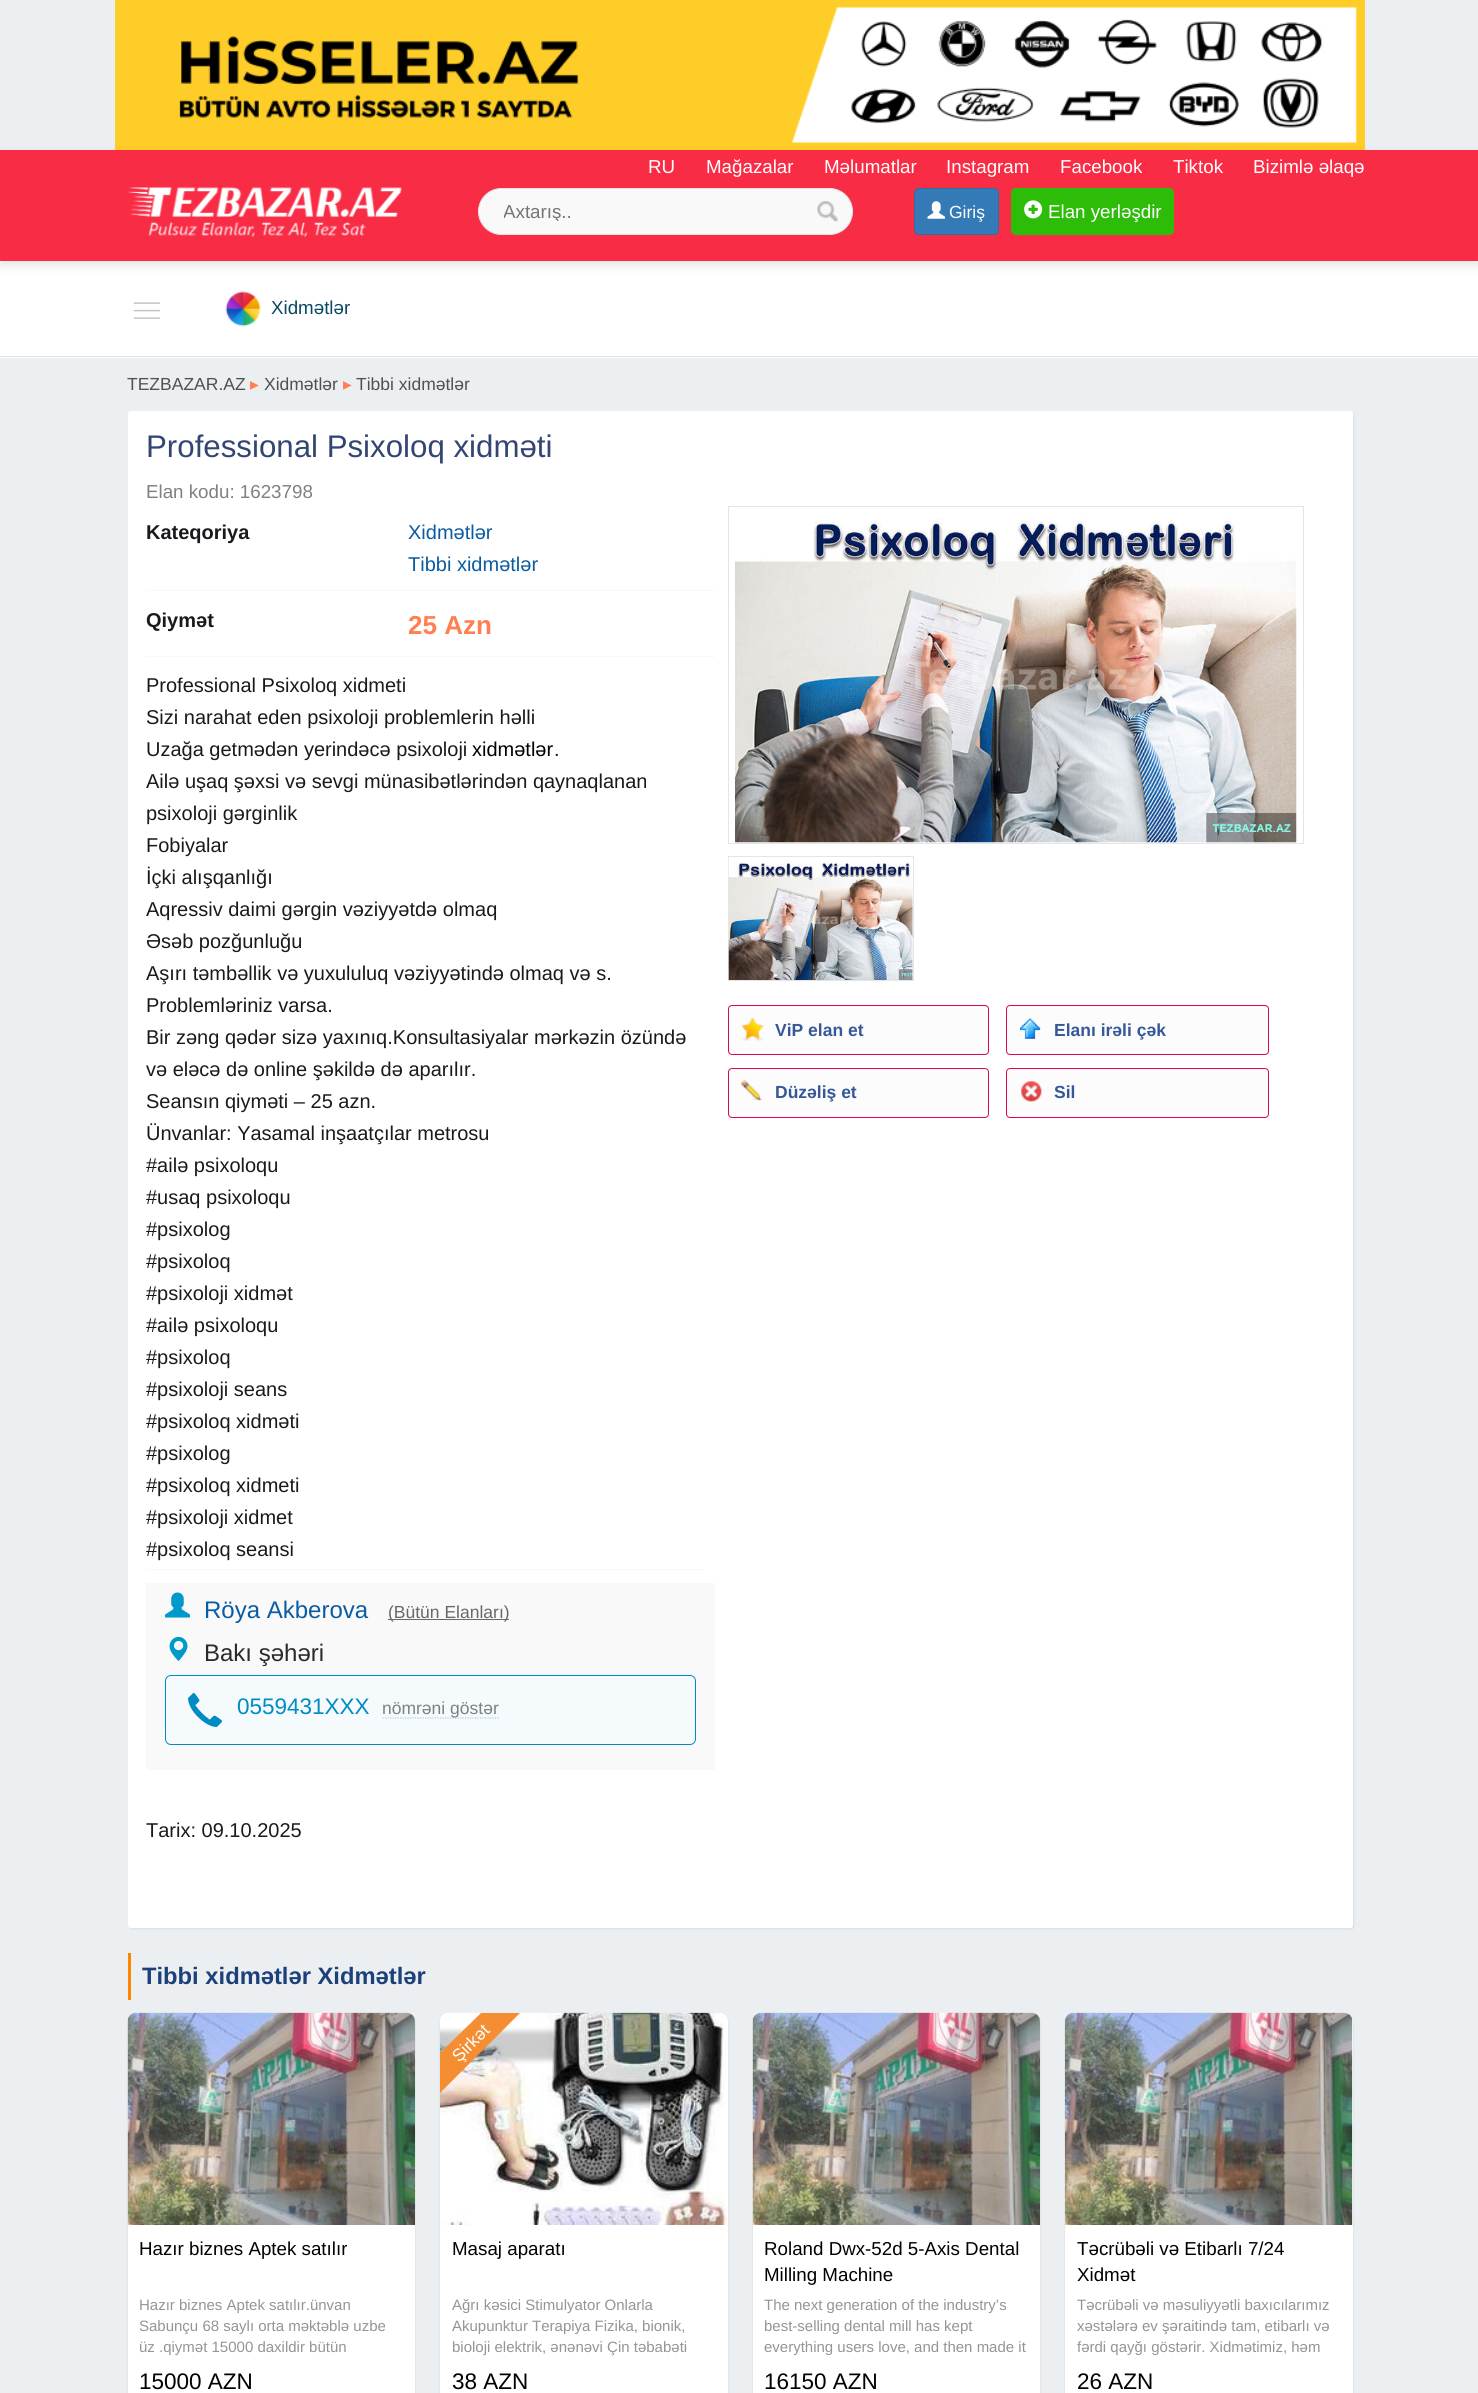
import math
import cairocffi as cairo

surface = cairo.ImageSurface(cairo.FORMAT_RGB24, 1478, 2393)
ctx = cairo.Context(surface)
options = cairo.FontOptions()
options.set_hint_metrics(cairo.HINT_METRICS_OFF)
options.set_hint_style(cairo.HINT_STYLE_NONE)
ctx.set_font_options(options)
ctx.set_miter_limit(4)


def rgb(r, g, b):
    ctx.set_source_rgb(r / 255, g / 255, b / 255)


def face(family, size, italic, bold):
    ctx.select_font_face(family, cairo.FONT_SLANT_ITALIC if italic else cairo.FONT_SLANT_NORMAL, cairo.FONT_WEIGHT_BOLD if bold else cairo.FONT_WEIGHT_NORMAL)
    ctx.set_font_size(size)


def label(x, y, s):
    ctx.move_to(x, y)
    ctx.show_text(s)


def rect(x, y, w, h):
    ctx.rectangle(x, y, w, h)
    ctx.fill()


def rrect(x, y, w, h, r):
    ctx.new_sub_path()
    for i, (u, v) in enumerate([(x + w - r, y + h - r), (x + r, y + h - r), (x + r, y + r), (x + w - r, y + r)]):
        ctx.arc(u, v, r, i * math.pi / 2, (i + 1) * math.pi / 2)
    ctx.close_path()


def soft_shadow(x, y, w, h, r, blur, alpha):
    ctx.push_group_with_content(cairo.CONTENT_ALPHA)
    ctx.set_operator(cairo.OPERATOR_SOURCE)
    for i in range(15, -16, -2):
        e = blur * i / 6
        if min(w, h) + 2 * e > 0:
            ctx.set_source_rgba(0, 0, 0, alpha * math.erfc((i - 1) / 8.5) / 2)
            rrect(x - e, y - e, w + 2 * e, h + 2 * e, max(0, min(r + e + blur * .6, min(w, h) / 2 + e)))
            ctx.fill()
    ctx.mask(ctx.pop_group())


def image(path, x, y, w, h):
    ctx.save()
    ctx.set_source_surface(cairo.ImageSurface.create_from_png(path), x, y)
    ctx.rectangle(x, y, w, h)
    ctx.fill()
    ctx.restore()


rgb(236, 239, 241)
ctx.paint()
image('image0.png', 115, 0, 1250, 150)
rgb(255, 255, 255)
rect(0, 261, 1478, 97)
rgb(0, 0, 0)
soft_shadow(0, 155, 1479, 111, 0, 5, 0.1)
rgb(249, 44, 70)
rect(0, 150, 1478, 111)
face('Liberation Sans', 18.75, 0, 0)
rgb(255, 255, 255)
label(648, 173, 'RU')
label(706, 173, 'Mağazalar')
label(824, 173, 'Məlumatlar')
label(946, 173, 'Instagram')
label(1060, 173, 'Facebook')
label(1173, 173, 'Tiktok')
label(1253, 173, 'Bizimlə əlaqə')
image('image1.png', 128, 187, 274, 50)
rgb(249, 249, 249)
rrect(478.5, 188.5, 374, 46, 23)
ctx.fill_preserve()
rgb(228, 228, 228)
ctx.set_line_width(1)
ctx.stroke()
ctx.save()
ctx.rectangle(504, 200, 322, 21)
ctx.clip()
rgb(117, 117, 117)
label(503, 218, 'Axtarış..')
ctx.restore()
image('image2.png', 817, 201, 21, 21)
rgb(51, 122, 183)
rrect(914.5, 188.5, 84, 46, 4.5)
ctx.fill_preserve()
rgb(46, 109, 164)
ctx.stroke()
image('image3.png', 927, 201, 18, 18)
face('Liberation Sans', 17.5, 0, 0)
rgb(255, 255, 255)
label(949, 218, 'Giriş')
rgb(45, 189, 9)
rrect(1011, 188, 163, 47, 5)
ctx.fill()
image('image4.png', 1024, 200, 19, 19)
face('Liberation Sans', 18.75, 0, 0)
rgb(255, 255, 255)
label(1048, 218, 'Elan yerləşdir')
rgb(224, 227, 229)
rect(0, 356, 1478, 1)
image('image5.png', 133, 302, 27, 17)
image('image6.png', 225, 291, 36, 36)
rgb(12, 71, 99)
label(271, 314, 'Xidmətlər')
face('Liberation Sans', 17.5, 0, 0)
rgb(82, 80, 80)
label(127, 390, 'TEZBAZAR.AZ')
face('DejaVu Sans', 17.5, 0, 0)
rgb(255, 127, 80)
label(250, 390, '▸')
face('Liberation Sans', 17.5, 0, 0)
rgb(82, 80, 80)
label(264, 390, 'Xidmətlər')
face('DejaVu Sans', 17.5, 0, 0)
rgb(255, 127, 80)
label(343, 390, '▸')
face('Liberation Sans', 17.5, 0, 0)
rgb(82, 80, 80)
label(356, 390, 'Tibbi xidmətlər')
rgb(50, 50, 50)
soft_shadow(129, 413, 1225, 1516, 2.5, 1, 0.1)
rgb(255, 255, 255)
rrect(128, 411, 1225, 1517, 2.5)
ctx.fill()
face('Liberation Sans', 31.25, 0, 0)
rgb(51, 70, 115)
label(146, 457, 'Professional Psixoloq xidməti')
face('Liberation Sans', 18.75, 0, 0)
rgb(128, 128, 128)
label(146, 498, 'Elan kodu: 1623798')
rgb(247, 248, 247)
rect(146, 590, 569, 1)
face('Liberation Sans', 20, 0, 1)
rgb(24, 26, 30)
label(146, 539, 'Kateqoriya')
face('Liberation Sans', 20, 0, 0)
rgb(9, 92, 162)
label(408, 539, 'Xidmətlər')
label(408, 571, 'Tibbi xidmətlər')
rgb(247, 248, 247)
rect(146, 656, 569, 1)
face('Liberation Sans', 20, 0, 1)
rgb(24, 26, 30)
label(146, 627, 'Qiymət')
face('Liberation Sans', 26, 0, 1)
rgb(255, 127, 80)
label(408, 634, '25 Azn')
rgb(247, 248, 247)
rect(146, 1569, 558, 1)
face('Liberation Sans', 20, 0, 0)
rgb(24, 26, 30)
label(146, 692, 'Professional Psixoloq xidmeti')
label(146, 724, 'Sizi narahat eden psixoloji problemlerin həlli')
label(146, 756, 'Uzağa getmədən yerindəcə psixoloji')
rgb(0, 0, 0)
label(472, 756, 'xidmətlər')
rgb(24, 26, 30)
label(554, 756, '.')
label(146, 788, 'Ailə uşaq şəxsi və sevgi münasibətlərindən qaynaqlanan')
label(146, 820, 'psixoloji gərginlik')
label(146, 852, 'Fobiyalar')
label(146, 884, 'İçki alışqanlığı')
label(146, 916, 'Aqressiv daimi gərgin vəziyyətdə olmaq')
label(146, 948, 'Əsəb pozğunluğu')
label(146, 980, 'Aşırı təmbəllik və yuxululuq vəziyyətində olmaq və s.')
label(146, 1012, 'Problemləriniz varsa.')
label(146, 1044, 'Bir zəng qədər sizə yaxınıq.Konsultasiyalar mərkəzin özündə')
label(146, 1076, 'və eləcə də online şəkildə də aparılır.')
label(146, 1108, 'Seansın qiyməti – 25 azn.')
label(146, 1140, 'Ünvanlar: Yasamal inşaatçılar metrosu')
label(146, 1172, '#ailə psixoloqu')
label(146, 1204, '#usaq psixoloqu')
label(146, 1236, '#psixolog')
label(146, 1268, '#psixoloq')
label(146, 1300, '#psixoloji xidmət')
label(146, 1332, '#ailə psixoloqu')
label(146, 1364, '#psixoloq')
label(146, 1396, '#psixoloji seans')
label(146, 1428, '#psixoloq xidməti')
label(146, 1460, '#psixolog')
label(146, 1492, '#psixoloq xidmeti')
label(146, 1524, '#psixoloji xidmet')
label(146, 1556, '#psixoloq seansi')
rgb(249, 249, 249)
rect(146, 1583, 569, 187)
image('image7.png', 165, 1592, 25, 26)
face('Liberation Sans', 24, 0, 0)
rgb(9, 92, 162)
label(204, 1618, 'Röya Akberova')
rgb(106, 103, 103)
rect(388, 1619, 121, 1)
face('Liberation Sans', 17.5, 0, 0)
label(388, 1618, '(Bütün Elanları)')
image('image8.png', 169, 1636, 19, 25)
face('Liberation Sans', 24, 0, 0)
rgb(42, 42, 42)
label(204, 1661, 'Bakı şəhəri')
rgb(245, 250, 253)
rrect(165.5, 1675.5, 530, 69, 5.5)
ctx.fill_preserve()
rgb(0, 140, 195)
ctx.stroke()
image('image9.png', 188, 1693, 34, 34)
face('Liberation Sans', 22.5, 0, 0)
label(237, 1714, '0559431XXX')
ctx.new_path()
ctx.move_to(382.5, 1718)
ctx.line_to(499, 1718)
rgb(172, 202, 238)
ctx.set_line_width(1.2)
ctx.set_dash([1.25, 1.25])
ctx.stroke()
face('Liberation Sans', 17.5, 0, 0)
rgb(128, 128, 128)
label(382, 1714, 'nömrəni göstər')
face('Liberation Sans', 20, 0, 0)
rgb(24, 26, 30)
label(146, 1837, 'Tarix: 09.10.2025')
ctx.rectangle(728.5, 506.5, 575, 337)
rgb(229, 229, 229)
ctx.set_line_width(1)
ctx.set_dash([])
ctx.stroke()
image('image10.png', 735, 519, 562, 324)
ctx.rectangle(728.5, 856.5, 185, 124)
ctx.stroke()
image('image11.png', 728, 858, 185, 122)
rgb(252, 252, 252)
rrect(728.5, 1005.5, 260, 49, 3.5)
ctx.fill_preserve()
rgb(218, 10, 69)
ctx.stroke()
image('image12.png', 741, 1017, 23, 24)
face('Liberation Sans', 17.5, 0, 1)
rgb(54, 88, 153)
label(775, 1036, 'ViP elan et')
rgb(252, 252, 252)
rrect(1006.5, 1005.5, 262, 49, 3.5)
ctx.fill_preserve()
rgb(218, 10, 69)
ctx.stroke()
image('image13.png', 1020, 1018, 21, 21)
rgb(54, 88, 153)
label(1054, 1036, 'Elanı irəli çək')
rgb(252, 252, 252)
rrect(728.5, 1068.5, 260, 49, 3.5)
ctx.fill_preserve()
rgb(218, 10, 69)
ctx.stroke()
image('image14.png', 741, 1079, 21, 22)
rgb(54, 88, 153)
label(775, 1098, 'Düzəliş et')
rgb(252, 252, 252)
rrect(1006.5, 1068.5, 262, 49, 3.5)
ctx.fill_preserve()
rgb(218, 10, 69)
ctx.stroke()
image('image15.png', 1021, 1081, 21, 21)
rgb(54, 88, 153)
label(1054, 1098, 'Sil')
rgb(255, 133, 0)
rect(128, 1953, 3, 47)
face('Liberation Sans', 23.75, 0, 1)
rgb(28, 64, 122)
label(142, 1984, 'Tibbi xidmətlər Xidmətlər')
rgb(0, 0, 0)
soft_shadow(128, 2014, 287, 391, 9, 1, 0.1)
rgb(255, 255, 255)
rrect(128, 2013, 287, 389, 9)
ctx.fill()
image('image16.png', 127, 2012, 288, 213)
face('Liberation Sans', 18.75, 0, 0)
rgb(0, 0, 0)
label(139, 2255, 'Hazır biznes Aptek satılır')
face('Liberation Sans', 15, 0, 0)
rgb(150, 148, 148)
label(139, 2310, 'Hazır biznes Aptek satılır.ünvan')
label(139, 2331, 'Sabunçu 68 saylı orta məktəblə uzbe')
label(139, 2352, 'üz .qiymət 15000 daxildir bütün')
face('Liberation Sans', 22.5, 0, 0)
rgb(0, 0, 0)
label(139, 2389, '15000 AZN')
rgb(0, 0, 0)
soft_shadow(440, 2014, 288, 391, 9, 1, 0.1)
rgb(255, 255, 255)
rrect(440, 2013, 288, 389, 9)
ctx.fill()
image('image17.png', 440, 2012, 287, 213)
ctx.save()
rrect(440, 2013, 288, 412, 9)
ctx.clip()
rgb(0, 0, 0)
soft_shadow(383, 2031, 176, 29, 6, 2.5, 0.2)
ctx.restore()
rgb(245, 141, 51)
ctx.new_path()
ctx.move_to(520, 2013)
ctx.line_to(440, 2093)
ctx.line_to(440, 2053)
ctx.line_to(481, 2013)
ctx.close_path()
ctx.fill()
face('Liberation Sans', 17.5, 0, 0)
rgb(255, 255, 255)
ctx.save()
ctx.translate(459, 2063)
ctx.rotate(-45 * math.pi / 180)
label(0, 0, 'Şirkət')
ctx.restore()
face('Liberation Sans', 18.75, 0, 0)
rgb(0, 0, 0)
label(452, 2255, 'Masaj aparatı')
face('Liberation Sans', 15, 0, 0)
rgb(150, 148, 148)
label(452, 2310, 'Ağrı kəsici Stimulyator Onlarla')
label(452, 2331, 'Akupunktur Terapiya Fizika, bionik,')
label(452, 2352, 'bioloji elektrik, ənənəvi Çin təbabəti')
face('Liberation Sans', 22.5, 0, 0)
rgb(0, 0, 0)
label(452, 2389, '38 AZN')
rgb(0, 0, 0)
soft_shadow(753, 2014, 287, 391, 9, 1, 0.1)
rgb(255, 255, 255)
rrect(753, 2013, 287, 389, 9)
ctx.fill()
image('image18.png', 752, 2012, 288, 213)
face('Liberation Sans', 18.75, 0, 0)
rgb(0, 0, 0)
label(764, 2255, 'Roland Dwx-52d 5-Axis Dental')
label(764, 2281, 'Milling Machine')
face('Liberation Sans', 15, 0, 0)
rgb(150, 148, 148)
label(764, 2310, 'The next generation of the industry’s')
label(764, 2331, 'best-selling dental mill has kept')
label(764, 2352, 'everything users love, and then made it')
face('Liberation Sans', 22.5, 0, 0)
rgb(0, 0, 0)
label(764, 2389, '16150 AZN')
rgb(0, 0, 0)
soft_shadow(1065, 2014, 288, 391, 9, 1, 0.1)
rgb(255, 255, 255)
rrect(1065, 2013, 288, 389, 9)
ctx.fill()
image('image19.png', 1065, 2012, 288, 213)
face('Liberation Sans', 18.75, 0, 0)
rgb(0, 0, 0)
label(1077, 2255, 'Təcrübəli və Etibarlı 7/24')
label(1077, 2281, 'Xidmət')
face('Liberation Sans', 15, 0, 0)
rgb(150, 148, 148)
label(1077, 2310, 'Təcrübəli və məsuliyyətli baxıcılarımız')
label(1077, 2331, 'xəstələrə ev şəraitində tam, etibarlı və')
label(1077, 2352, 'fərdi qayğı göstərir. Xidmətimiz, həm')
face('Liberation Sans', 22.5, 0, 0)
rgb(0, 0, 0)
label(1077, 2389, '26 AZN')
surface.write_to_png('render.png')
